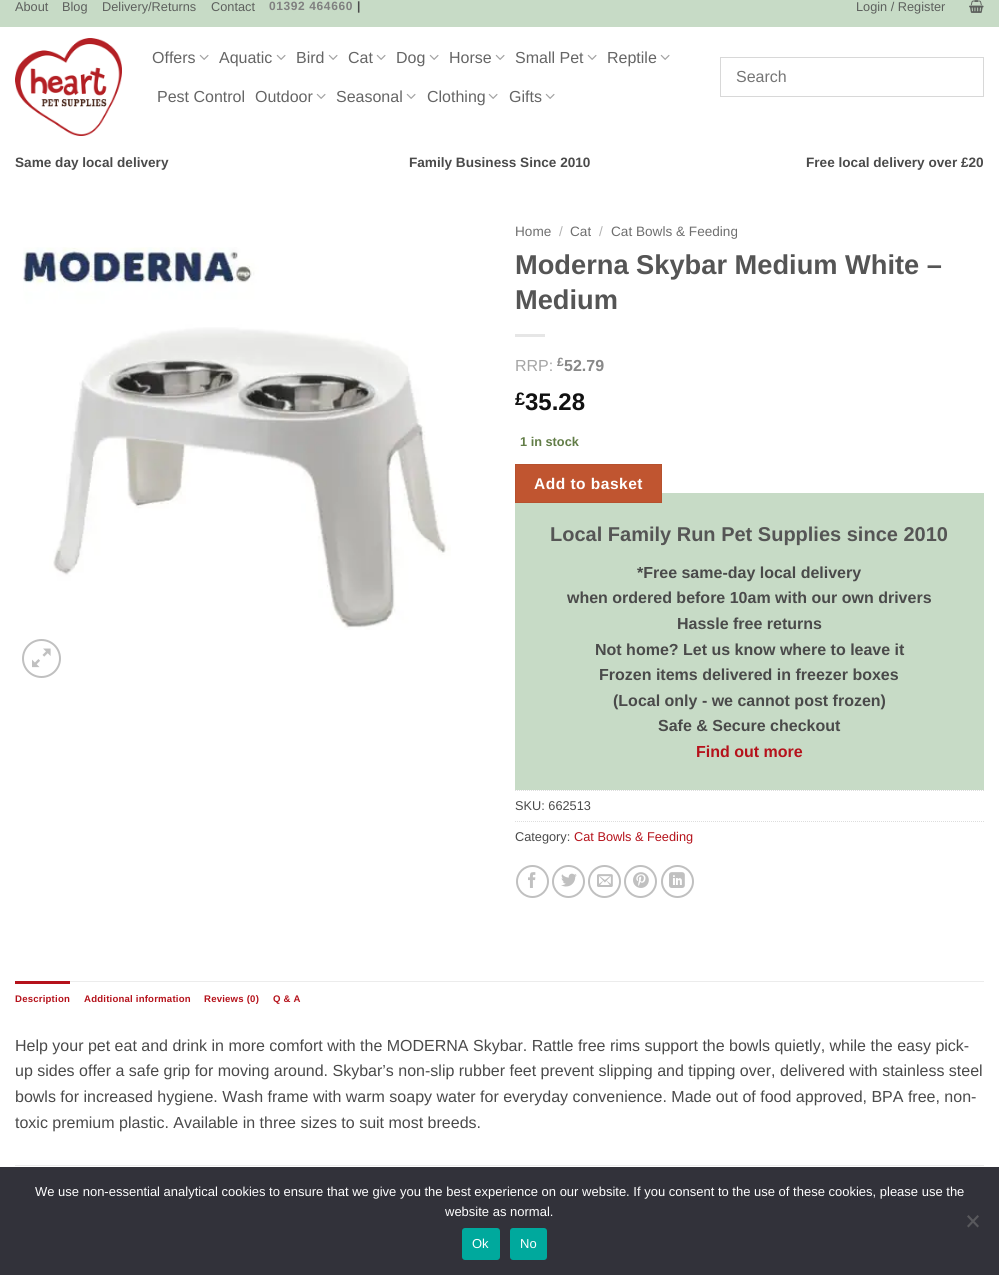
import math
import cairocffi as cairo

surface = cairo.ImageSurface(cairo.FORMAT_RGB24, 999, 1275)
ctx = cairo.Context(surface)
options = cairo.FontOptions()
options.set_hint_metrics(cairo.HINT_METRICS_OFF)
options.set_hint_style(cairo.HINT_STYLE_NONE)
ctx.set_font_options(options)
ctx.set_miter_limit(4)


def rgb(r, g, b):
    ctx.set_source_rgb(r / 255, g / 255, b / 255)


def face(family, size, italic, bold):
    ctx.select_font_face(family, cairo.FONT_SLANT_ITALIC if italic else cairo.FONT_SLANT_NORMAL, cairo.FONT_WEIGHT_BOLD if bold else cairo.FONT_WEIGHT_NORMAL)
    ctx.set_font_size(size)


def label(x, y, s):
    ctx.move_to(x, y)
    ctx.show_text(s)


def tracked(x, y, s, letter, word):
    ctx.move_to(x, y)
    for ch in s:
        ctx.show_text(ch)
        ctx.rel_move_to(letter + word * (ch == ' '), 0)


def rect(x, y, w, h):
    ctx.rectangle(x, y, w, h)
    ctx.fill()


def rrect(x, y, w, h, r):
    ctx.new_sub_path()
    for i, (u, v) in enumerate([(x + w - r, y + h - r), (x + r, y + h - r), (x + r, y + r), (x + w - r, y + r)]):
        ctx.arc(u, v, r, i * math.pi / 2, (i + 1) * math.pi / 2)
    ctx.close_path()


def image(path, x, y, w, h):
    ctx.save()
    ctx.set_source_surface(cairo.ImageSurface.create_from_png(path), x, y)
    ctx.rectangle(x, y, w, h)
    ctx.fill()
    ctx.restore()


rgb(255, 255, 255)
ctx.paint()
rgb(199, 219, 198)
rect(0, 0, 999, 27)
face('Liberation Sans', 12.75, 0, 0)
rgb(93, 96, 93)
label(15, 11, 'About')
label(62, 11, 'Blog')
label(102, 11, 'Delivery/Returns')
label(211, 11, 'Contact')
face('Liberation Sans', 12, 0, 1)
rgb(128, 128, 128)
tracked(269, 10, '01392 464660', 0.6, 0)
rgb(74, 74, 74)
tracked(357, 10, '|', 0.6, 0)
face('Liberation Sans', 12.75, 0, 0)
rgb(93, 96, 93)
label(856, 11, 'Login / Register')
image('image0.png', 969, 0, 15, 13)
image('image1.png', 15, 38, 107, 98)
face('Liberation Sans', 16, 0, 0)
rgb(101, 101, 101)
label(152, 63, 'Offers')
image('image2.png', 199, 54, 10, 6)
label(219, 63, 'Aquatic')
image('image2.png', 276, 54, 10, 6)
label(296, 63, 'Bird')
image('image2.png', 328, 54, 10, 6)
label(348, 63, 'Cat')
image('image2.png', 376, 54, 10, 6)
label(396, 63, 'Dog')
image('image2.png', 429, 54, 10, 6)
label(449, 63, 'Horse')
image('image2.png', 495, 54, 10, 6)
label(515, 63, 'Small Pet')
image('image2.png', 587, 54, 10, 6)
label(607, 63, 'Reptile')
image('image2.png', 660, 54, 10, 6)
label(157, 102, 'Pest Control')
label(255, 102, 'Outdoor')
image('image2.png', 316, 93, 10, 6)
label(336, 102, 'Seasonal')
image('image2.png', 406, 93, 10, 6)
label(427, 102, 'Clothing')
image('image2.png', 488, 93, 10, 6)
label(509, 102, 'Gifts')
image('image2.png', 545, 93, 10, 6)
ctx.rectangle(720.5, 57.5, 263, 39)
rgb(216, 216, 216)
ctx.set_line_width(1)
ctx.stroke()
rgb(117, 117, 117)
label(736, 82, 'Search')
face('Liberation Sans', 13.6, 0, 1)
rgb(74, 74, 74)
label(15, 167, 'Same day local delivery')
label(409, 167, 'Family Business Since 2010')
label(806, 167, 'Free local delivery over £20')
image('image3.png', 23, 247, 428, 383)
ctx.arc(41.5, 658.5, 18.5, 0, 2 * math.pi)
rgb(192, 192, 192)
ctx.set_line_width(2)
ctx.stroke()
image('image4.png', 32, 648, 19, 20)
face('Liberation Sans', 13.6, 0, 0)
rgb(110, 110, 110)
label(515, 236, 'Home')
rgb(178, 178, 178)
label(559, 236, '/')
rgb(110, 110, 110)
label(570, 236, 'Cat')
rgb(178, 178, 178)
label(599, 236, '/')
rgb(110, 110, 110)
label(611, 236, 'Cat Bowls & Feeding')
face('Liberation Sans', 27.25, 0, 1)
rgb(85, 85, 85)
label(515, 274, 'Moderna Skybar Medium White –')
label(515, 309, 'Medium')
rgb(230, 230, 230)
rect(515, 334, 30, 3)
face('Liberation Sans', 16, 0, 0)
rgb(165, 165, 165)
label(515, 371, 'RRP:')
face('Liberation Sans', 12, 0, 1)
rgb(136, 136, 136)
label(557, 366, '£')
face('Liberation Sans', 16, 0, 1)
label(564, 371, '52.79')
face('Liberation Sans', 18, 0, 1)
rgb(17, 17, 17)
label(515, 405, '£')
face('Liberation Sans', 24, 0, 1)
label(525, 410, '35.28')
face('Liberation Sans', 12.75, 0, 1)
rgb(98, 125, 71)
label(520, 446, '1 in stock')
rgb(199, 219, 198)
rect(515, 493, 469, 297)
rgb(192, 85, 48)
ctx.rectangle(515.5, 464.5, 146, 38)
ctx.fill_preserve()
rgb(182, 81, 46)
ctx.set_line_width(1)
ctx.stroke()
face('Liberation Sans', 15.5, 0, 1)
rgb(255, 255, 255)
tracked(534, 489, 'Add to basket', 0.5, 0)
face('Liberation Sans', 20, 0, 1)
rgb(85, 85, 85)
label(550, 541, 'Local Family Run Pet Supplies since 2010')
face('Liberation Sans', 16, 0, 1)
rgb(74, 74, 74)
label(637, 578, '*Free same-day local delivery')
label(567, 603, 'when ordered before 10am with our own drivers')
label(677, 629, 'Hassle free returns')
label(595, 655, 'Not home? Let us know where to leave it')
label(599, 680, 'Frozen items delivered in freezer boxes')
label(613, 706, '(Local only - we cannot post frozen)')
label(658, 731, 'Safe & Secure checkout')
rgb(181, 18, 27)
label(696, 757, 'Find out more')
ctx.new_path()
ctx.move_to(515, 790.5)
ctx.line_to(984, 790.5)
rgb(221, 221, 221)
ctx.set_dash([1, 1])
ctx.stroke()
face('Liberation Sans', 12.75, 0, 0)
rgb(74, 74, 74)
label(515, 810, 'SKU: 662513')
ctx.new_path()
ctx.move_to(515, 821.5)
ctx.line_to(984, 821.5)
rgb(221, 221, 221)
ctx.stroke()
rgb(74, 74, 74)
label(515, 841, 'Category:')
rgb(181, 18, 27)
label(574, 841, 'Cat Bowls & Feeding')
ctx.new_path()
ctx.arc(532.5, 881.5, 15.5, 0, 2 * math.pi)
rgb(192, 192, 192)
ctx.set_line_width(2)
ctx.set_dash([])
ctx.stroke()
image('image5.png', 528, 872, 8, 16)
ctx.arc(568.5, 881.5, 15.5, 0, 2 * math.pi)
ctx.stroke()
image('image6.png', 561, 873, 16, 14)
ctx.arc(604.5, 881.5, 15.5, 0, 2 * math.pi)
ctx.stroke()
image('image7.png', 597, 874, 16, 13)
ctx.arc(640.5, 881.5, 15.5, 0, 2 * math.pi)
ctx.stroke()
image('image8.png', 633, 872, 16, 16)
ctx.arc(677.5, 881.5, 15.5, 0, 2 * math.pi)
ctx.stroke()
image('image9.png', 669, 872, 16, 16)
rgb(236, 236, 236)
rect(70, 981, 914, 1)
rgb(181, 18, 27)
rect(15, 981, 55, 3)
face('Liberation Sans', 9.6, 0, 1)
tracked(15, 1002, 'Description', 0.2, 0)
tracked(84, 1002, 'Additional information', 0.2, 0)
tracked(204, 1002, 'Reviews (0)', 0.2, 0)
tracked(273, 1002, 'Q & A', 0.2, 0)
face('Liberation Sans', 16, 0, 0)
rgb(74, 74, 74)
label(15, 1051, 'Help your pet eat and drink in more comfort with the MODERNA Skybar. Rattle free rims support the bowls quietly, while the easy pick-')
label(15, 1076, 'up sides offer a safe grip for moving around. Skybar’s non-slip rubber feet prevent slipping and tipping over, delivered with stainless steel')
label(15, 1102, 'bowls for increased hygiene. Wash frame with warm soapy water for everyday convenience. Made out of food approved, BPA free, non-')
label(15, 1128, 'toxic premium plastic. Available in three sizes to suit most breeds.')
rgb(236, 236, 236)
rect(15, 1165, 969, 1)
rgb(50, 50, 58)
rect(0, 1167, 999, 108)
face('Liberation Sans', 13, 0, 0)
rgb(255, 255, 255)
label(35, 1196, 'We use non-essential analytical cookies to ensure that we give you the best experience on our website. If you consent to the use of these cookies, please use the')
label(445, 1216, 'website as normal.')
rgb(89, 89, 93)
ctx.new_path()
ctx.move_to(977.5, 1215)
ctx.line_to(979, 1216.5)
ctx.line_to(968.5, 1227.5)
ctx.line_to(967, 1226)
ctx.close_path()
ctx.fill()
ctx.new_path()
ctx.move_to(967, 1216.5)
ctx.line_to(968.5, 1215)
ctx.line_to(979, 1226)
ctx.line_to(977.5, 1227.5)
ctx.close_path()
ctx.fill()
rgb(0, 169, 157)
rrect(462, 1228, 38, 32, 3)
ctx.fill()
rgb(255, 255, 255)
label(472, 1248, 'Ok')
rgb(0, 169, 157)
rrect(510, 1228, 37, 32, 3)
ctx.fill()
rgb(255, 255, 255)
label(520, 1248, 'No')
surface.write_to_png('render.png')
